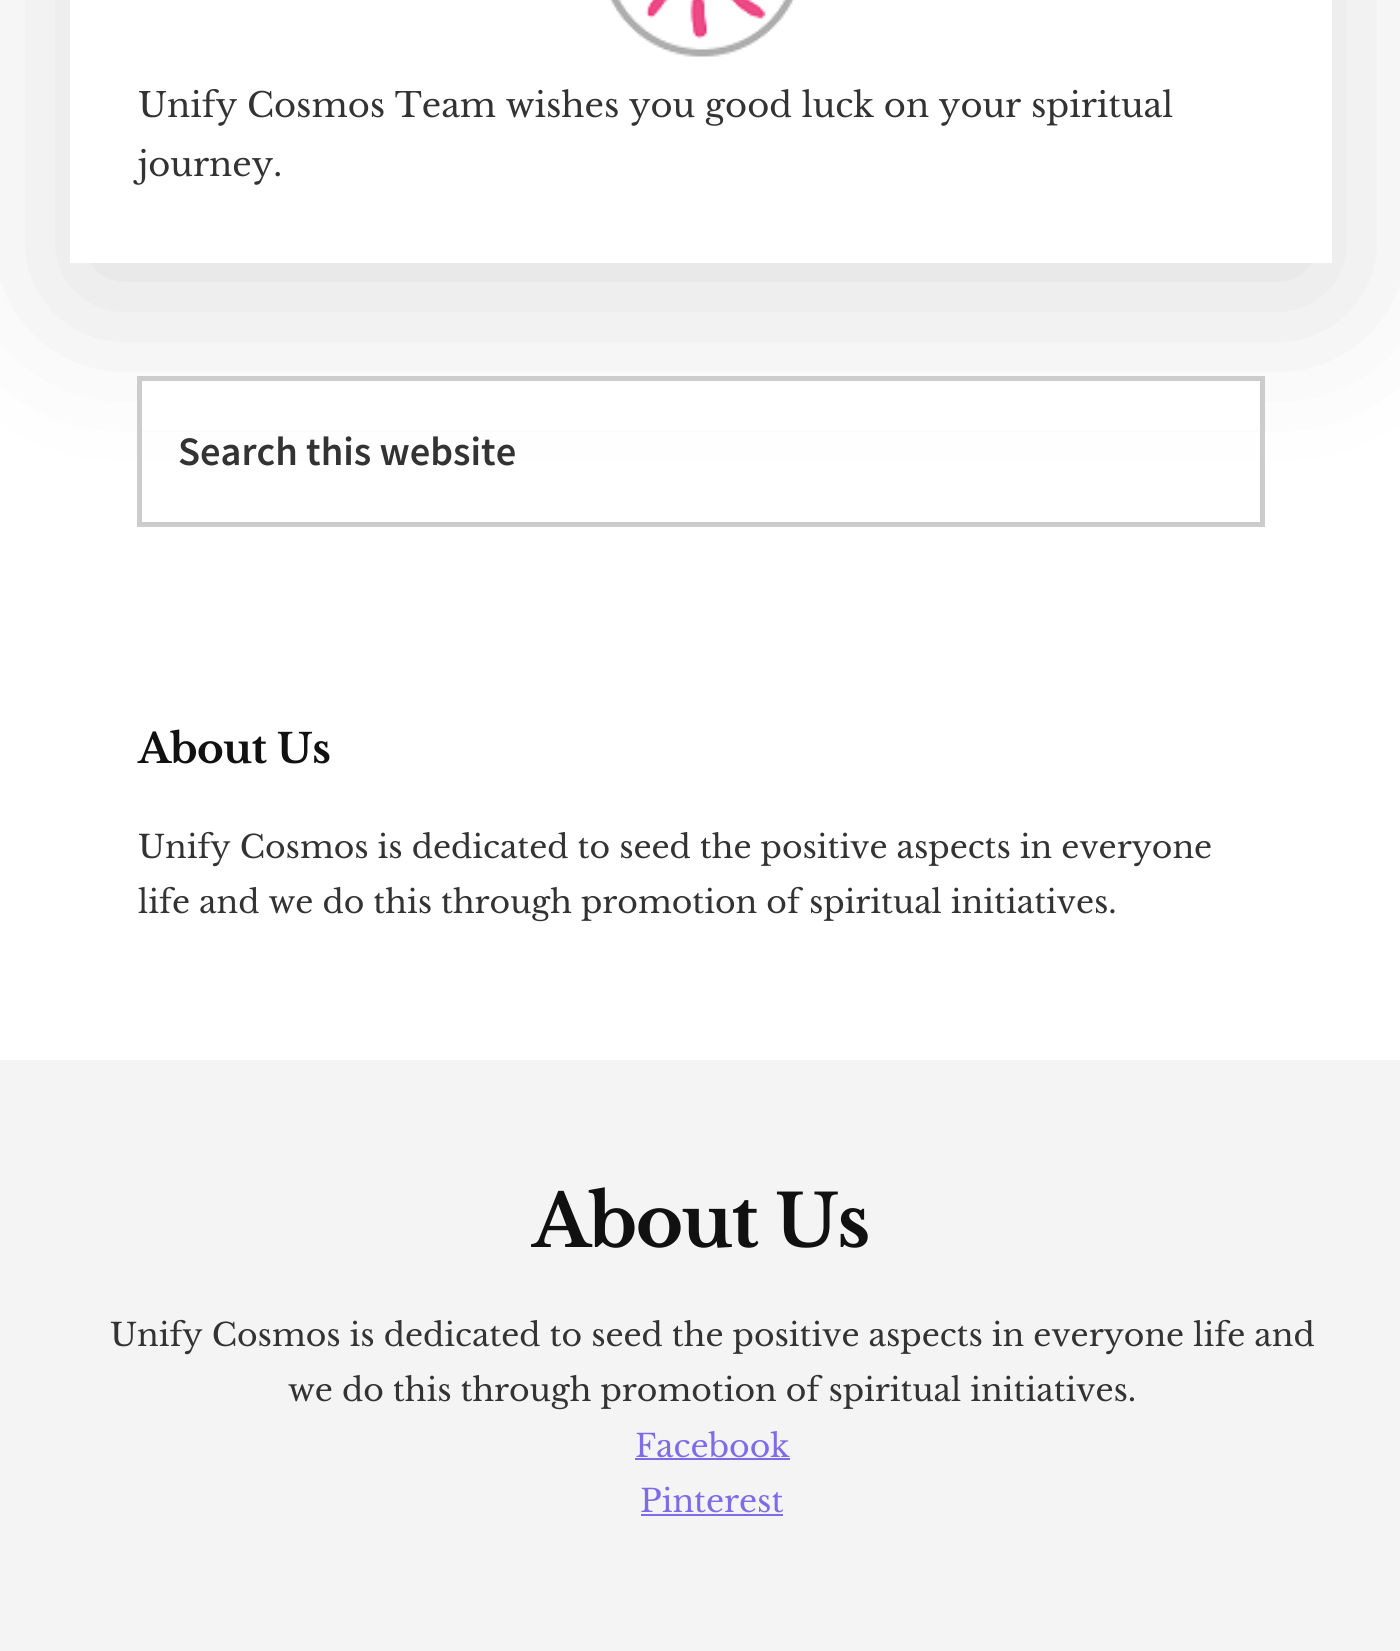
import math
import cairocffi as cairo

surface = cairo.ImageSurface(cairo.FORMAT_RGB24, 1400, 1651)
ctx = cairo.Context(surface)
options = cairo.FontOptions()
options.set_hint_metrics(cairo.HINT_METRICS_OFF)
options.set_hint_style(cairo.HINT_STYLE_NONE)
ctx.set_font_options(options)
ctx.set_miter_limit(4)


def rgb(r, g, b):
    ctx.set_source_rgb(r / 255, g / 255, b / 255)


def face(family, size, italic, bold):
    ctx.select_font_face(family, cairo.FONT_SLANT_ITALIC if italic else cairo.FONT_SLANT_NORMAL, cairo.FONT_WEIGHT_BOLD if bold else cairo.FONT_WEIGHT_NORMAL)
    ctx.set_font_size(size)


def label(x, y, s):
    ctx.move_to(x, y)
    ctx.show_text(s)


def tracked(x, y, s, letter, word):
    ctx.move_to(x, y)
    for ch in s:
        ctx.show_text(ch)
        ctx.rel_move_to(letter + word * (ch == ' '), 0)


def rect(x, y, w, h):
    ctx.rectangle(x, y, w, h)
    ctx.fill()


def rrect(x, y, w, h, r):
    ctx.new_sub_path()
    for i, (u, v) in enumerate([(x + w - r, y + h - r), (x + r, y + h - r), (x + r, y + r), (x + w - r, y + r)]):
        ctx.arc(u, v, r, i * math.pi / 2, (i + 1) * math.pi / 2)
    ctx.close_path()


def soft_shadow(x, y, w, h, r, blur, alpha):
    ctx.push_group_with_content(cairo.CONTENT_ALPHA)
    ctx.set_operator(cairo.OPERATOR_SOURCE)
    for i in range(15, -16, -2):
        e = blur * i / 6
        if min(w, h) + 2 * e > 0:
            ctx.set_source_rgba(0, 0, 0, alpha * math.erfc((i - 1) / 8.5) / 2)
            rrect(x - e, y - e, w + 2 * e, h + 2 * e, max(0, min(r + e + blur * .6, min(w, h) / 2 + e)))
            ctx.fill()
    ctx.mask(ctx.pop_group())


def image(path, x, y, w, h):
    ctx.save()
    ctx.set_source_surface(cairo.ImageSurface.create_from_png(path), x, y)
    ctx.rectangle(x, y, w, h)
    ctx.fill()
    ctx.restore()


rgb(255, 255, 255)
ctx.paint()
ctx.save()
ctx.set_fill_rule(cairo.FILL_RULE_EVEN_ODD)
ctx.new_path()
ctx.move_to(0, 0)
ctx.line_to(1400, 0)
ctx.line_to(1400, 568)
ctx.line_to(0, 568)
ctx.close_path()
ctx.move_to(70, -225)
ctx.line_to(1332, -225)
ctx.line_to(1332, 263)
ctx.line_to(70, 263)
ctx.close_path()
ctx.clip()
rgb(0, 0, 0)
soft_shadow(70, -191, 1262, 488, 0, 90, 0.14)
ctx.restore()
image('image0.png', 609, 0, 186, 57)
face('Libre Baskerville', 33.75, 0, 0)
rgb(51, 51, 51)
label(138, 117, 'Unify Cosmos Team wishes you good luck on your spiritual')
label(138, 176, 'journey.')
rgb(255, 255, 255)
rect(142, 381, 1118, 48)
ctx.rectangle(139.5, 378.5, 1123, 146)
rgb(204, 204, 204)
ctx.set_line_width(5)
ctx.stroke()
face('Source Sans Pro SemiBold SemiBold', 40.5, 0, 0)
rgb(51, 51, 51)
label(178, 465, 'Search this website')
face('Libre Baskerville', 40.5, 0, 1)
rgb(17, 17, 17)
tracked(138, 763, 'About Us', -0.5, 0)
face('Libre Baskerville', 31.5, 0, 0)
rgb(51, 51, 51)
label(138, 858, 'Unify Cosmos is dedicated to seed the positive aspects in everyone')
label(138, 913, 'life and we do this through promotion of spiritual initiatives.')
rgb(244, 244, 244)
rect(0, 1060, 1400, 591)
face('Libre Baskerville', 72, 0, 1)
rgb(17, 17, 17)
tracked(532, 1247, 'About Us', -1.5, 0)
face('Libre Baskerville', 31.5, 0, 0)
rgb(51, 51, 51)
label(110, 1346, 'Unify Cosmos is dedicated to seed the positive aspects in everyone life and')
label(288, 1401, 'we do this through promotion of spiritual initiatives.')
rgb(126, 107, 232)
label(635, 1457, 'Facebook')
rect(635, 1458, 155, 2)
label(640, 1512, 'Pinterest')
rect(641, 1514, 142, 2)
surface.write_to_png('render.png')
